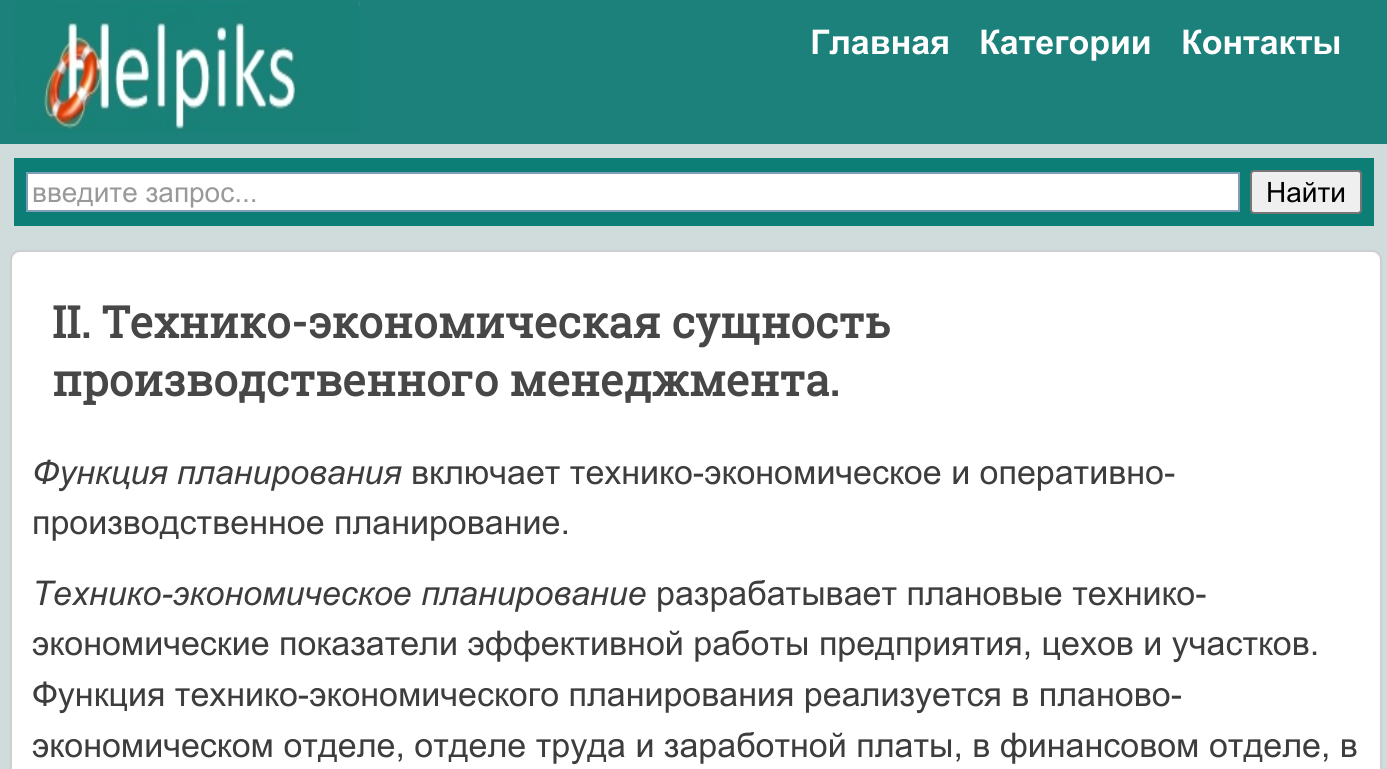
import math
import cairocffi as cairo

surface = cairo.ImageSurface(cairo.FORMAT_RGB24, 1387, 769)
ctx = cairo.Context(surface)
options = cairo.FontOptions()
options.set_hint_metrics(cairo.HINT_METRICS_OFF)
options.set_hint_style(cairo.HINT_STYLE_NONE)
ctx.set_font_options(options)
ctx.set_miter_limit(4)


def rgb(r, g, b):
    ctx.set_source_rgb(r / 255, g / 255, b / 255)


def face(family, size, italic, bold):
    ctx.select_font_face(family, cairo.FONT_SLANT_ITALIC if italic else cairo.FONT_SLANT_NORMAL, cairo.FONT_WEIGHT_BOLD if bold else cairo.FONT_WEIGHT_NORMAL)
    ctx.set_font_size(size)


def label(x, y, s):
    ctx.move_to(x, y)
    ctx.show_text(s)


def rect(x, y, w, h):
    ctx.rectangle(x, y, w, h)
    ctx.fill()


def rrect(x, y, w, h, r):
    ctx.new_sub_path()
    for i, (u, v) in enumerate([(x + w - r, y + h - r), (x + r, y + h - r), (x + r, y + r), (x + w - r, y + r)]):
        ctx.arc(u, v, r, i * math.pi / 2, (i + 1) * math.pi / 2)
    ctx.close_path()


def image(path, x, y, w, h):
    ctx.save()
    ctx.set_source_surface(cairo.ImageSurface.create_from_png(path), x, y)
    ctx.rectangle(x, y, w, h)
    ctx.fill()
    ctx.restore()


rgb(208, 219, 219)
ctx.paint()
rgb(28, 128, 123)
rect(0, 0, 1387, 144)
image('image0.png', 14, 2, 346, 131)
face('Arial', 34, 0, 1)
rgb(255, 255, 255)
label(810, 54, 'Главная')
label(979, 54, 'Категории')
label(1181, 54, 'Контакты')
rgb(12, 126, 118)
rect(14, 158, 1360, 68)
rgb(255, 255, 255)
ctx.rectangle(27, 173, 1212, 38)
ctx.fill_preserve()
rgb(127, 157, 185)
ctx.stroke()
face('Arial', 28, 0, 0)
rgb(153, 153, 153)
label(32, 202, 'введите запрос...')
rgb(239, 239, 239)
rrect(1251, 171, 110, 42, 3)
ctx.fill_preserve()
rgb(118, 118, 118)
ctx.stroke()
rgb(0, 0, 0)
label(1266, 202, 'Найти')
rgb(255, 255, 255)
rrect(11, 251, 1370, 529, 9)
ctx.fill_preserve()
rgb(208, 207, 207)
ctx.stroke()
face('Roboto Slab', 44, 0, 1)
rgb(71, 71, 71)
label(52, 338, 'II. Технико-экономическая сущность')
label(52, 396, 'производственного менеджмента.')
face('Arial', 34, 1, 0)
rgb(61, 61, 61)
label(32, 484, 'Функция планирования')
face('Arial', 34, 0, 0)
label(411, 484, 'включает технико-экономическое и оперативно-')
label(32, 534, 'производственное планирование.')
face('Arial', 34, 1, 0)
label(32, 605, 'Технико-экономическое планирование')
face('Arial', 34, 0, 0)
label(656, 605, 'разрабатывает плановые технико-')
label(32, 655, 'экономические показатели эффективной работы предприятия, цехов и участков.')
label(32, 706, 'Функция технико-экономического планирования реализуется в планово-')
label(32, 757, 'экономическом отделе, отделе труда и заработной платы, в финансовом отделе, в')
surface.write_to_png('render.png')
